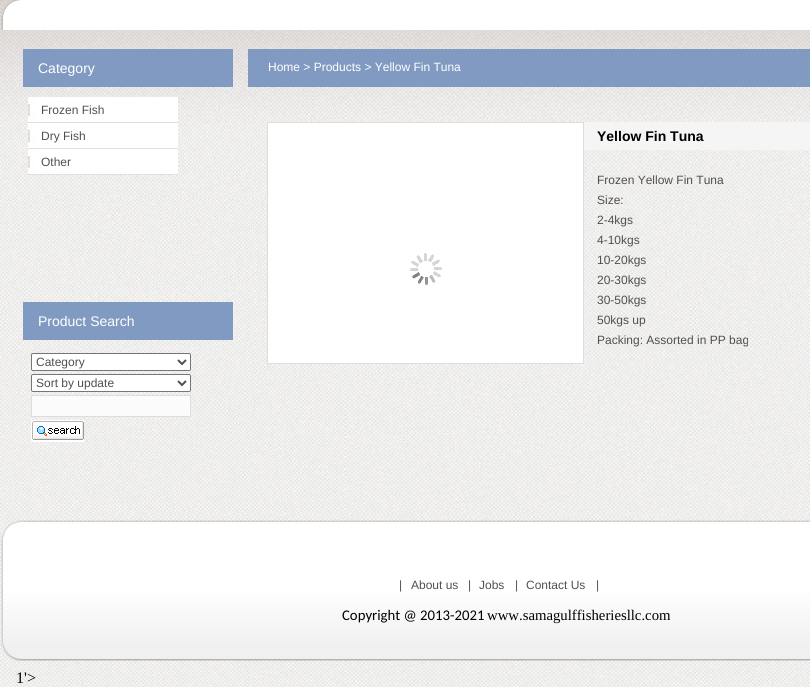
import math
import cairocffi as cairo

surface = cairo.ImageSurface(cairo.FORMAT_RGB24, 810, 687)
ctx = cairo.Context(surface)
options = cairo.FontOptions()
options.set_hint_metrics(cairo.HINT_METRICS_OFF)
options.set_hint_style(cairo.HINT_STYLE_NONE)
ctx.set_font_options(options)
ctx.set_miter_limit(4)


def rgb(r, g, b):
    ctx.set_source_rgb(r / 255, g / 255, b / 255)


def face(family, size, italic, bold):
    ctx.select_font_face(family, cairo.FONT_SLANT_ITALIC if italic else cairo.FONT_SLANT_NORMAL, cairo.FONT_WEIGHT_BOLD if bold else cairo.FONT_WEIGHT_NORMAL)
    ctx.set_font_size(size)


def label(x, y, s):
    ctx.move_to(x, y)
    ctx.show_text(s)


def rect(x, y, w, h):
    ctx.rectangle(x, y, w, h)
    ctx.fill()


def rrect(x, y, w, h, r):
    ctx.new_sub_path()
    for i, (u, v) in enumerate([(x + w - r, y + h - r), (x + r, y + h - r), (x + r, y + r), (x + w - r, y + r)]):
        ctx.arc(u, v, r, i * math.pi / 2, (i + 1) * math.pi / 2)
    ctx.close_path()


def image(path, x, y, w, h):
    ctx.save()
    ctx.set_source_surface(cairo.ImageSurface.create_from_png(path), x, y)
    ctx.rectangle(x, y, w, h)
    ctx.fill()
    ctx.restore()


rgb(255, 255, 255)
ctx.paint()
image('image0.png', 0, 0, 810, 687)
image('image1.png', 1, 0, 809, 30)
rgb(129, 154, 194)
rect(23, 49, 210, 38)
face('Liberation Sans', 14, 0, 0)
rgb(255, 255, 255)
label(38, 73, 'Category')
image('image2.png', 28, 97, 150, 26)
face('Liberation Sans', 12, 0, 0)
rgb(80, 80, 80)
label(41, 114, 'Frozen Fish')
image('image2.png', 28, 123, 150, 26)
label(41, 140, 'Dry Fish')
image('image2.png', 28, 149, 150, 26)
label(41, 166, 'Other')
rgb(129, 154, 194)
rect(248, 49, 562, 38)
rgb(255, 255, 255)
label(268, 71, 'Home > Products > Yellow Fin Tuna')
rgb(129, 154, 194)
rect(23, 302, 210, 38)
face('Liberation Sans', 14, 0, 0)
rgb(255, 255, 255)
label(38, 326, 'Product Search')
rrect(31.5, 353.5, 159, 17, 1.5)
ctx.fill_preserve()
rgb(118, 118, 118)
ctx.set_line_width(1)
ctx.stroke()
ctx.new_path()
ctx.move_to(178, 360)
ctx.line_to(182, 364)
ctx.line_to(186, 360)
rgb(80, 80, 80)
ctx.set_line_width(2)
ctx.stroke()
face('Liberation Sans', 12, 0, 0)
label(36, 366, 'Category')
rgb(255, 255, 255)
rrect(31.5, 374.5, 159, 17, 1.5)
ctx.fill_preserve()
rgb(118, 118, 118)
ctx.set_line_width(1)
ctx.stroke()
ctx.new_path()
ctx.move_to(178, 381)
ctx.line_to(182, 385)
ctx.line_to(186, 381)
rgb(80, 80, 80)
ctx.set_line_width(2)
ctx.stroke()
label(36, 387, 'Sort by update')
rgb(251, 251, 251)
ctx.rectangle(31.5, 395.5, 159, 21)
ctx.fill_preserve()
rgb(221, 221, 221)
ctx.set_line_width(1)
ctx.stroke()
image('image3.png', 31, 420, 53, 22)
rgb(255, 255, 255)
ctx.rectangle(267.5, 122.5, 316, 241)
ctx.fill_preserve()
rgb(221, 221, 221)
ctx.stroke()
image('image4.png', 410, 253, 32, 32)
rgb(245, 245, 245)
rect(584, 122, 226, 28)
face('Liberation Sans', 14, 0, 1)
rgb(0, 0, 0)
label(597, 141, 'Yellow Fin Tuna')
face('Liberation Sans', 12, 0, 0)
rgb(80, 80, 80)
label(597, 184, 'Frozen Yellow Fin Tuna')
label(597, 204, 'Size:')
label(597, 224, '2-4kgs')
label(597, 244, '4-10kgs')
label(597, 264, '10-20kgs')
label(597, 284, '20-30kgs')
label(597, 304, '30-50kgs')
label(597, 324, '50kgs up')
label(597, 344, 'Packing: Assorted in PP bag')
rgb(238, 238, 238)
rect(584, 360, 226, 3)
image('image5.png', 1, 520, 809, 141)
rgb(80, 80, 80)
label(399, 589, '|')
label(411, 589, 'About us')
label(468, 589, '|')
label(479, 589, 'Jobs')
label(515, 589, '|')
label(526, 589, 'Contact Us')
label(596, 589, '|')
face('Carlito', 14.75, 0, 0)
rgb(0, 0, 0)
label(342, 620, 'Copyright @ 2013-2021')
face('Liberation Serif', 14.75, 0, 0)
label(487, 620, 'www.samagulffisheriesllc.com')
face('Liberation Serif', 16, 0, 0)
label(16, 683, '1\'>')
surface.write_to_png('render.png')
